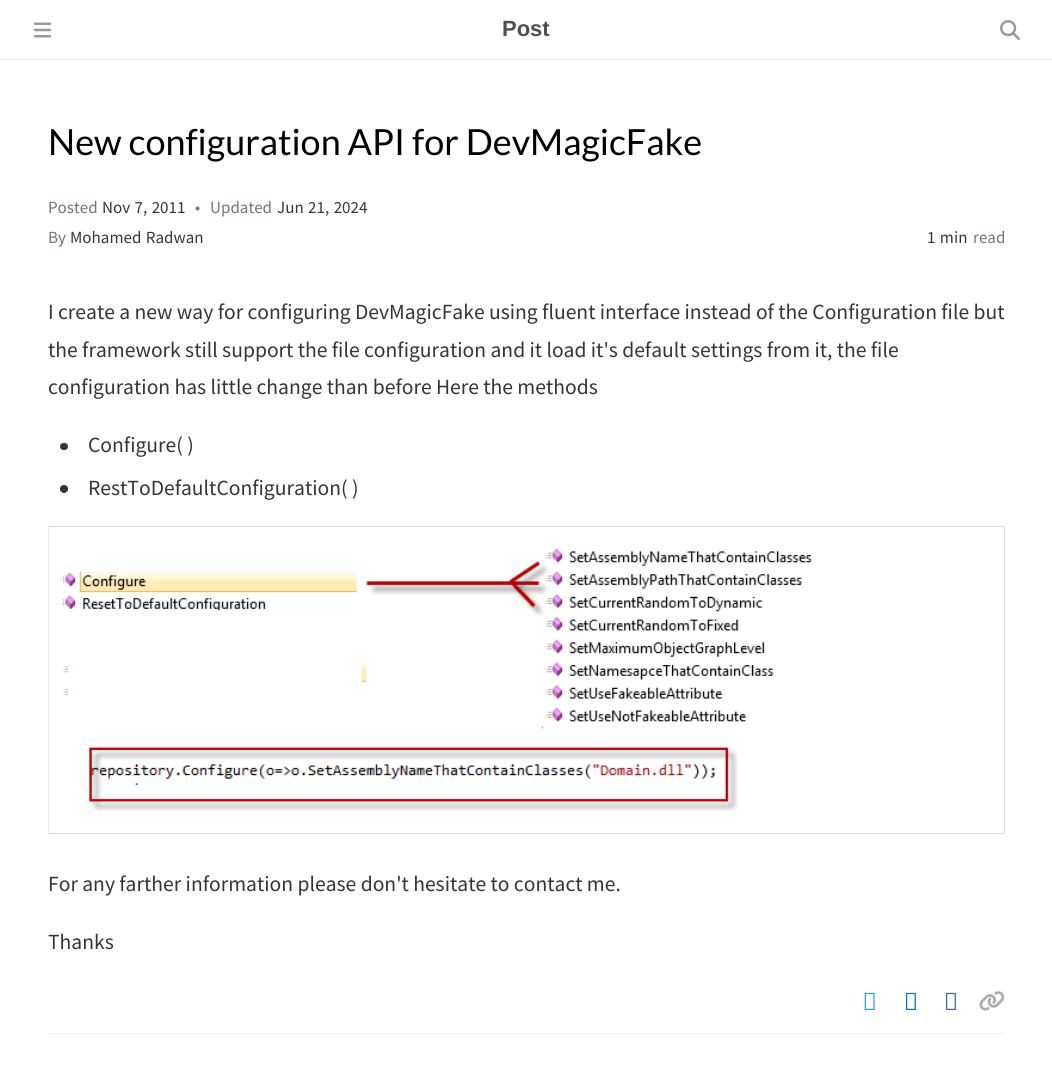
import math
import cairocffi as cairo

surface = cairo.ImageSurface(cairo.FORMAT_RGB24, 1052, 1067)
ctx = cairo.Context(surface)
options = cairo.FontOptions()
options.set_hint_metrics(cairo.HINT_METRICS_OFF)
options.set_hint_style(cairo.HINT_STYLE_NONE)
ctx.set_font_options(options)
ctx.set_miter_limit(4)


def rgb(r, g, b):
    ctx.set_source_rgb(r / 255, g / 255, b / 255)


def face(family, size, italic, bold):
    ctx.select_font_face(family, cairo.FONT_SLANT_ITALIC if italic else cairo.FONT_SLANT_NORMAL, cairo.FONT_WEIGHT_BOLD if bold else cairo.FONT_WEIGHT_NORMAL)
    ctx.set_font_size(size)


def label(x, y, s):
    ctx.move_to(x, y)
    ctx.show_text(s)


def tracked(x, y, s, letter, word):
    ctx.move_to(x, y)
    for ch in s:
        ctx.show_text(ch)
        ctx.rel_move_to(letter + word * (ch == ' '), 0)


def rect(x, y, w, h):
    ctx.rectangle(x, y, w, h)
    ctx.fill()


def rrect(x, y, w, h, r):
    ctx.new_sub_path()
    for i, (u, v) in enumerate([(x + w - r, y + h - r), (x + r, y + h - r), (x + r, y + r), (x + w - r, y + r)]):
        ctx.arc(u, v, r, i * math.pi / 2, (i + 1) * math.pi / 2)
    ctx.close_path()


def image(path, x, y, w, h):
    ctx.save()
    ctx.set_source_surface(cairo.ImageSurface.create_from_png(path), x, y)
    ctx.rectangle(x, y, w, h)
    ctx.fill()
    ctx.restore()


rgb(255, 255, 255)
ctx.paint()
rgb(237, 237, 237)
rect(0, 59, 1052, 1)
image('image0.png', 33, 22, 19, 16)
face('Liberation Sans', 22, 0, 1)
rgb(78, 78, 78)
label(502, 36, 'Post')
image('image1.png', 1000, 20, 20, 20)
face('Lato', 36, 0, 0)
rgb(0, 0, 0)
label(48, 155, 'New configuration API for DevMagicFake')
face('Source Sans Pro', 17, 0, 0)
rgb(108, 117, 125)
label(48, 213, 'Posted')
rgb(52, 52, 60)
tracked(102, 213, 'Nov 7, 2011', 0, 1)
rgb(108, 117, 125)
label(195, 213, '•')
label(210, 213, 'Updated')
rgb(52, 52, 60)
tracked(277, 213, 'Jun 21, 2024', 0, 1)
rgb(108, 117, 125)
label(48, 243, 'By')
rgb(52, 52, 60)
tracked(70, 243, 'Mohamed Radwan', 0, 1)
tracked(927, 243, '1 min', 0, 1)
rgb(108, 117, 125)
label(973, 243, 'read')
face('Source Sans Pro', 21.6, 0, 0)
rgb(52, 52, 60)
label(48, 319, 'I create a new way for configuring DevMagicFake using fluent interface instead of the Configuration file but')
label(48, 357, 'the framework still support the file configuration and it load it\'s default settings from it, the file')
label(48, 394, 'configuration has little change than before Here the methods')
rrect(60, 443, 8, 7, 3.5)
ctx.fill()
label(88, 452, 'Configure( )')
ctx.new_path()
ctx.arc(64, 489, 4, 0, 2 * math.pi)
ctx.fill()
label(88, 495, 'RestToDefaultConfiguration( )')
ctx.rectangle(48.5, 526.5, 956, 307)
rgb(221, 221, 221)
ctx.set_line_width(1)
ctx.stroke()
image('image2.png', 48, 527, 764, 306)
rgb(52, 52, 60)
label(48, 891, 'For any farther information please don\'t hesitate to contact me.')
label(48, 949, 'Thanks')
rgb(243, 243, 243)
rect(48, 1033, 957, 1)
image('image3.png', 864, 992, 11, 18)
image('image4.png', 906, 992, 10, 18)
image('image5.png', 946, 992, 10, 18)
image('image6.png', 979, 991, 26, 20)
surface.write_to_png('render.png')
